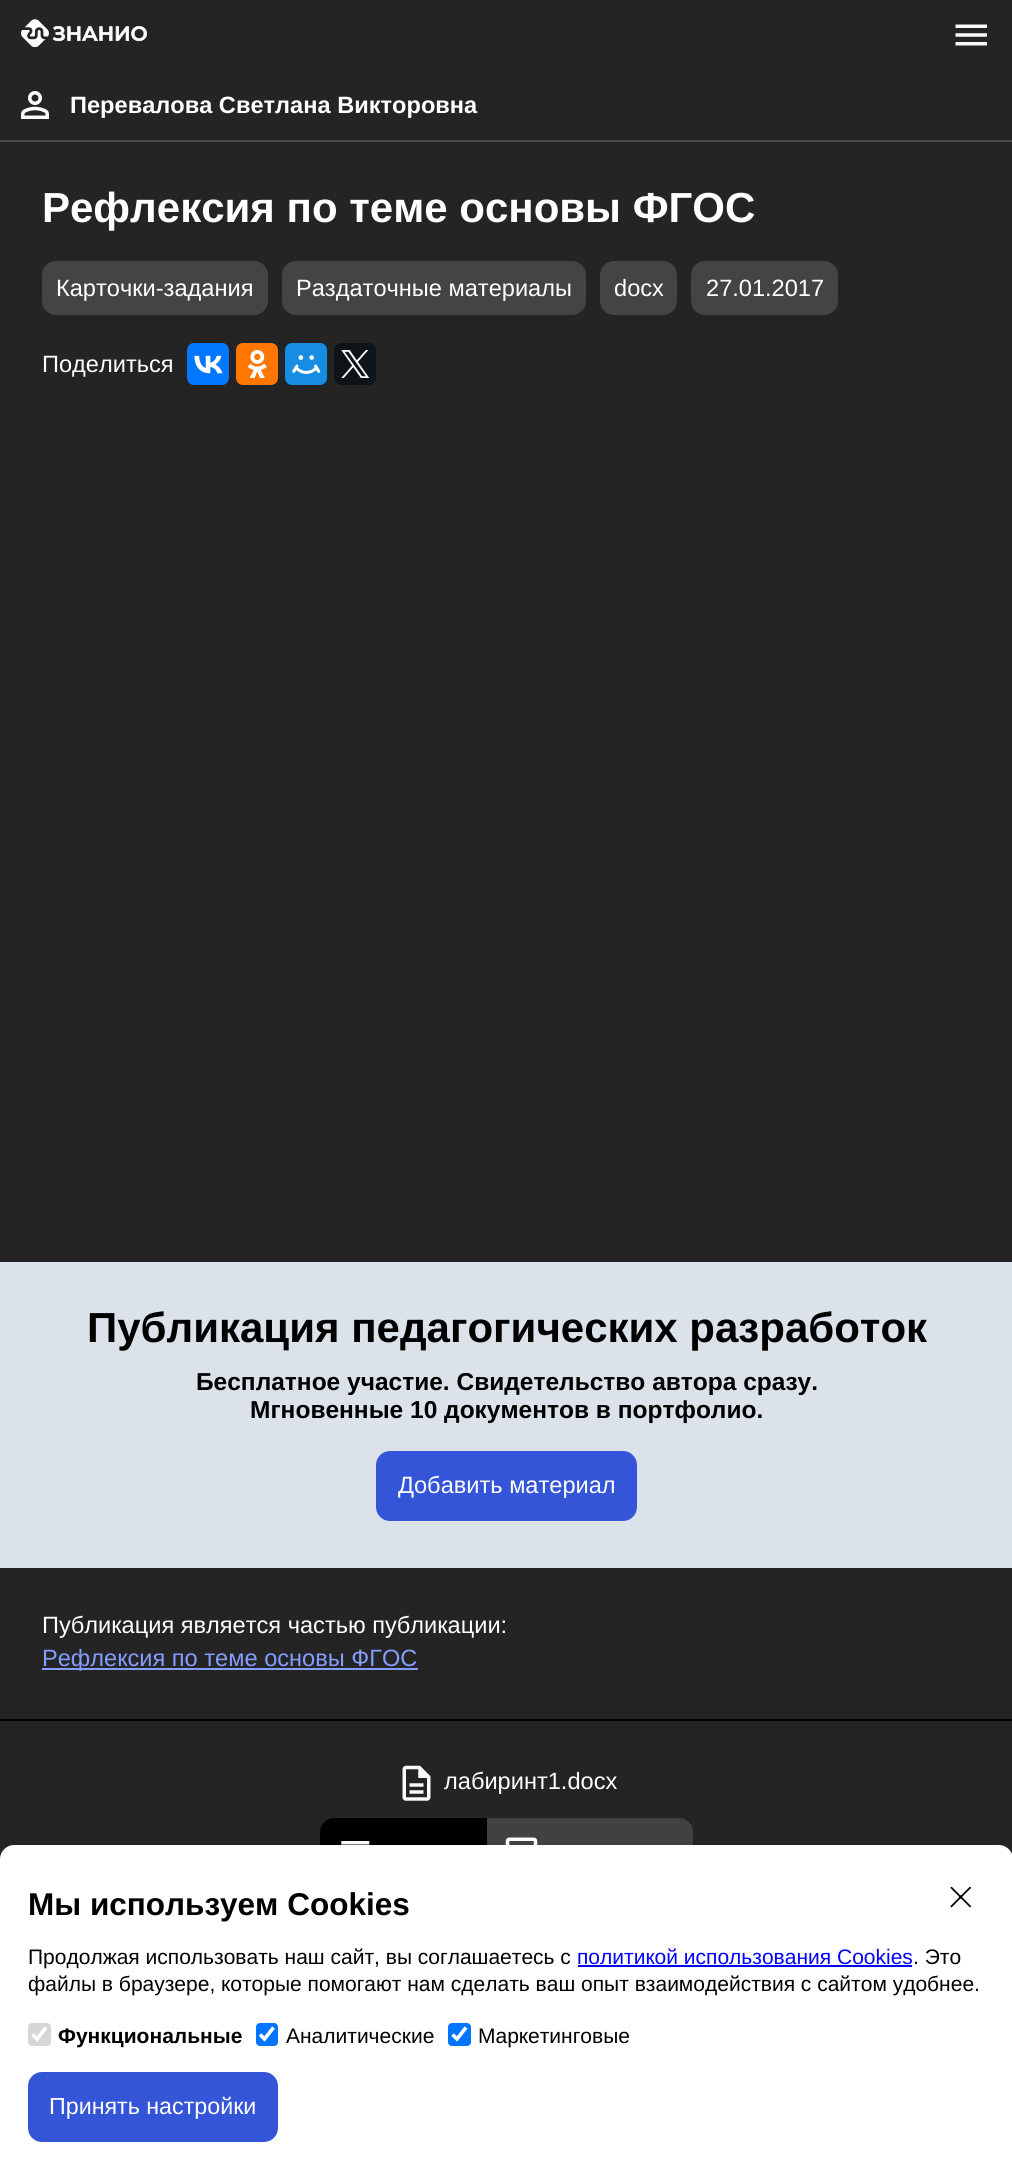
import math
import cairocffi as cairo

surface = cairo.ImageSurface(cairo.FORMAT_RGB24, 1012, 2183)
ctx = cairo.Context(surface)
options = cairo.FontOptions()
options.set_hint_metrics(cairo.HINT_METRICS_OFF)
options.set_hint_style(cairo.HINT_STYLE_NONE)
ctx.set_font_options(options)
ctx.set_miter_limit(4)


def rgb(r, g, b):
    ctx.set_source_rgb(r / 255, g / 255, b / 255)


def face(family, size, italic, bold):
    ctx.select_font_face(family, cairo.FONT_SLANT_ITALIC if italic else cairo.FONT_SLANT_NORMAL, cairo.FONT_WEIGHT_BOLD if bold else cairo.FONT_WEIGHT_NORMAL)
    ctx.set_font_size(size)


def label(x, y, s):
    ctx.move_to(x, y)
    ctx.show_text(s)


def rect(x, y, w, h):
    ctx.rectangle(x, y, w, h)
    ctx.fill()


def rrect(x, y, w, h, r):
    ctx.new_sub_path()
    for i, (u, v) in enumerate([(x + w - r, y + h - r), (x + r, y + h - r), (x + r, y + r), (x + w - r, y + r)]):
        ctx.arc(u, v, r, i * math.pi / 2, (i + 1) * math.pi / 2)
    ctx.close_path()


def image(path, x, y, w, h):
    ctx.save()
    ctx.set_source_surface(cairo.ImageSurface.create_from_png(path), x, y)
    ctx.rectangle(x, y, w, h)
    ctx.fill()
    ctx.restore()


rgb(36, 36, 36)
ctx.paint()
image('image0.png', 21, 19, 126, 28)
image('image1.png', 955, 24, 32, 22)
rgb(74, 74, 74)
rect(0, 140, 1012, 2)
image('image2.png', 21, 91, 28, 28)
face('Liberation Sans', 23.6, 0, 1)
rgb(255, 255, 255)
label(70, 113, 'Перевалова Светлана Викторовна')
face('Liberation Sans', 42, 0, 1)
label(42, 222, 'Рефлексия по теме основы ФГОС')
rgb(68, 68, 68)
rrect(42, 261, 226, 54, 14)
ctx.fill()
face('Liberation Sans', 23.6, 0, 0)
rgb(255, 255, 255)
label(56, 296, 'Карточки-задания')
rgb(68, 68, 68)
rrect(282, 261, 304, 54, 14)
ctx.fill()
rgb(255, 255, 255)
label(296, 296, 'Раздаточные материалы')
rgb(68, 68, 68)
rrect(600, 261, 77, 54, 14)
ctx.fill()
rgb(255, 255, 255)
label(614, 296, 'docx')
rgb(68, 68, 68)
rrect(691, 261, 147, 54, 14)
ctx.fill()
rgb(255, 255, 255)
label(706, 296, '27.01.2017')
label(42, 372, 'Поделиться')
rgb(0, 119, 255)
rrect(187, 343, 42, 42, 7)
ctx.fill()
image('image3.png', 194, 355, 29, 19)
rgb(255, 119, 0)
rrect(236, 343, 42, 42, 7)
ctx.fill()
image('image4.png', 247, 350, 20, 28)
rgb(22, 141, 226)
rrect(285, 343, 42, 42, 7)
ctx.fill()
image('image5.png', 292, 355, 29, 19)
rgb(15, 20, 25)
rrect(334, 343, 42, 42, 7)
ctx.fill()
image('image6.png', 341, 350, 29, 28)
rgb(220, 226, 233)
rect(0, 1262, 1012, 306)
face('Liberation Sans', 42, 0, 1)
rgb(0, 0, 0)
label(87, 1342, 'Публикация педагогических разработок')
face('Liberation Sans', 24.5, 0, 1)
label(196, 1390, 'Бесплатное участие. Свидетельство автора сразу.')
label(250, 1418, 'Мгновенные 10 документов в портфолио.')
rgb(53, 85, 217)
rrect(376, 1451, 261, 70, 14)
ctx.fill()
face('Liberation Sans', 23.6, 0, 0)
rgb(255, 255, 255)
label(398, 1493, 'Добавить материал')
label(42, 1633, 'Публикация является частью публикации:')
rgb(132, 157, 255)
rect(42, 1668, 376, 2)
label(42, 1666, 'Рефлексия по теме основы ФГОС')
rgb(0, 0, 0)
rect(0, 1719, 1012, 2)
image('image7.png', 402, 1765, 29, 36)
rgb(255, 255, 255)
label(444, 1789, 'лабиринт1.docx')
rgb(0, 0, 0)
ctx.new_path()
ctx.move_to(334, 1818)
ctx.line_to(487, 1818)
ctx.line_to(487, 1888)
ctx.line_to(334, 1888)
ctx.curve_to(326.5, 1888, 320, 1881.5, 320, 1874)
ctx.line_to(320, 1832)
ctx.curve_to(320, 1824.5, 326.5, 1818, 334, 1818)
ctx.close_path()
ctx.fill()
image('image8.png', 341, 1841, 29, 4)
rgb(65, 65, 65)
ctx.new_path()
ctx.move_to(487, 1818)
ctx.line_to(679, 1818)
ctx.curve_to(686.5, 1818, 693, 1824.5, 693, 1832)
ctx.line_to(693, 1874)
ctx.curve_to(693, 1881.5, 686.5, 1888, 679, 1888)
ctx.line_to(487, 1888)
ctx.close_path()
ctx.fill()
image('image9.png', 505, 1837, 33, 8)
rgb(255, 255, 255)
ctx.new_path()
ctx.move_to(14, 1845)
ctx.line_to(999, 1845)
ctx.curve_to(1006.5, 1845, 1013, 1851.5, 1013, 1859)
ctx.line_to(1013, 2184)
ctx.line_to(0, 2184)
ctx.line_to(0, 1859)
ctx.curve_to(0, 1851.5, 6.5, 1845, 14, 1845)
ctx.close_path()
ctx.fill()
face('Liberation Sans', 31.5, 0, 1)
rgb(0, 0, 0)
label(28, 1915, 'Мы используем Cookies')
image('image10.png', 950, 1887, 21, 21)
face('Liberation Sans', 21, 0, 0)
label(28, 1964, 'Продолжая использовать наш сайт, вы соглашаетесь с')
rgb(0, 0, 255)
label(577, 1964, 'политикой использования Cookies')
rect(578, 1965, 334, 2)
rgb(0, 0, 0)
label(913, 1964, '. Это')
label(28, 1991, 'файлы в браузере, которые помогают нам сделать ваш опыт взаимодействия с сайтом удобнее.')
rgb(214, 214, 214)
rrect(28, 2023, 23, 23, 4)
ctx.fill()
ctx.new_path()
ctx.move_to(32.5, 2034.5)
ctx.line_to(37, 2039)
ctx.line_to(46, 2027.5)
rgb(255, 255, 255)
ctx.set_line_width(3.6)
ctx.stroke()
face('Liberation Sans', 21, 0, 1)
rgb(0, 0, 0)
label(58, 2043, 'Функциональные')
rgb(0, 117, 255)
rrect(256, 2023, 22, 23, 4)
ctx.fill()
ctx.new_path()
ctx.move_to(260, 2034.5)
ctx.line_to(264.5, 2039)
ctx.line_to(273.5, 2027.5)
rgb(255, 255, 255)
ctx.stroke()
face('Liberation Sans', 21, 0, 0)
rgb(0, 0, 0)
label(286, 2043, 'Аналитические')
rgb(0, 117, 255)
rrect(448, 2023, 23, 23, 4)
ctx.fill()
ctx.new_path()
ctx.move_to(452.5, 2034.5)
ctx.line_to(457, 2039)
ctx.line_to(466, 2027.5)
rgb(255, 255, 255)
ctx.stroke()
rgb(0, 0, 0)
label(478, 2043, 'Маркетинговые')
rgb(53, 85, 217)
rrect(28, 2072, 250, 70, 14)
ctx.fill()
face('Liberation Sans', 23.25, 0, 0)
rgb(255, 255, 255)
label(49, 2114, 'Принять настройки')
surface.write_to_png('render.png')
